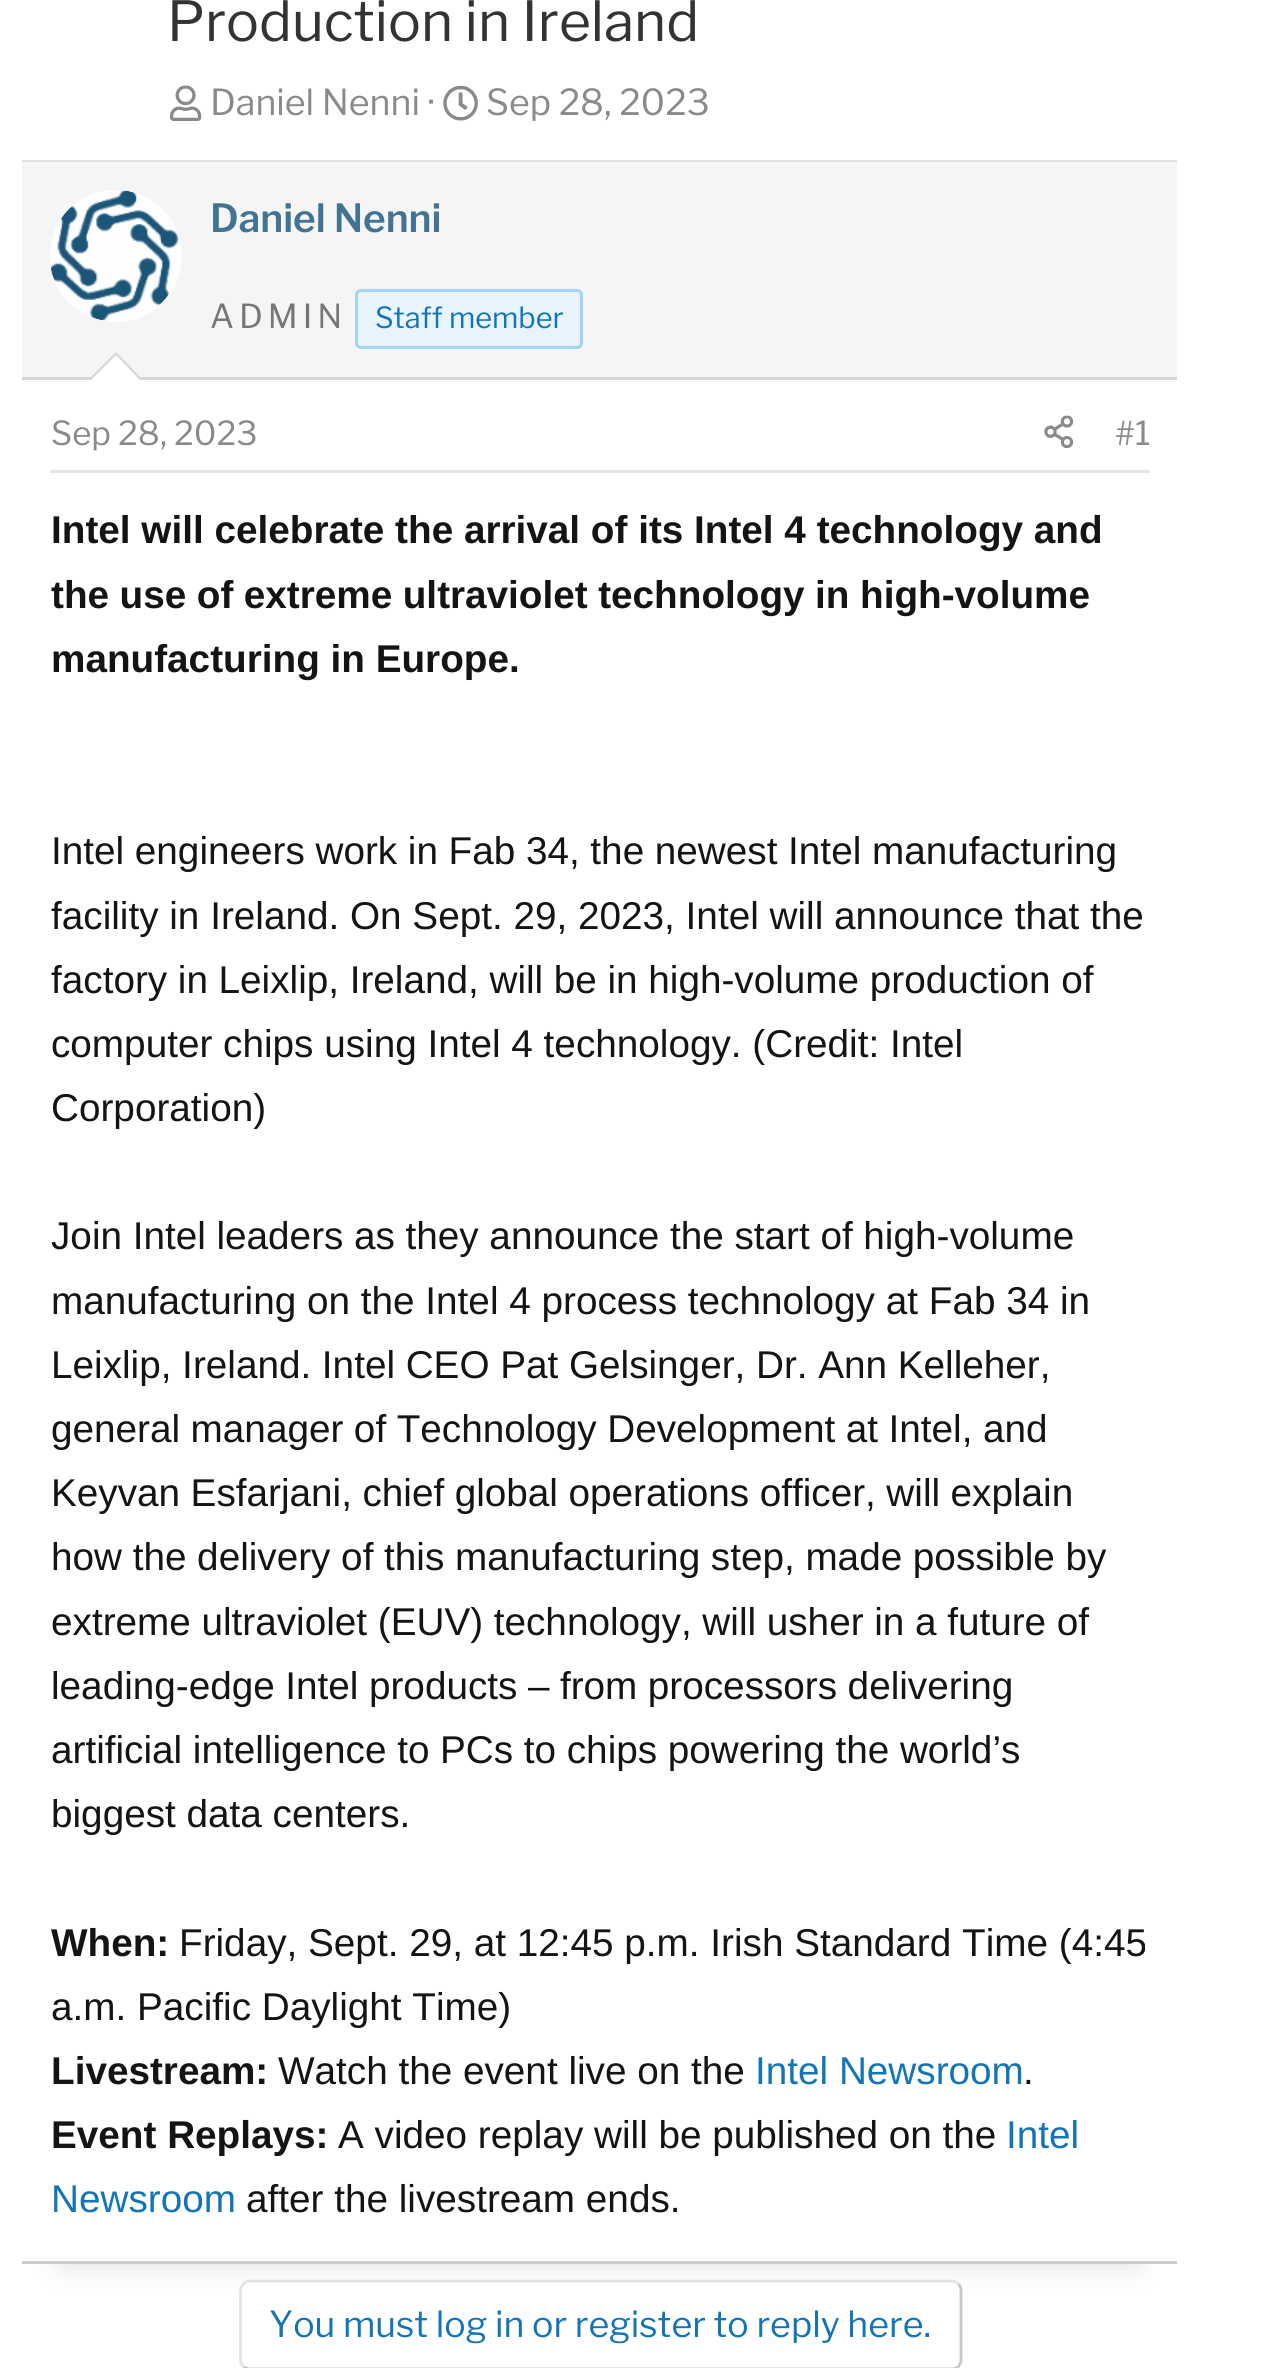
import math
import cairocffi as cairo

surface = cairo.ImageSurface(cairo.FORMAT_RGB24, 1269, 2368)
ctx = cairo.Context(surface)
options = cairo.FontOptions()
options.set_hint_metrics(cairo.HINT_METRICS_OFF)
options.set_hint_style(cairo.HINT_STYLE_NONE)
ctx.set_font_options(options)
ctx.set_miter_limit(4)


def rgb(r, g, b):
    ctx.set_source_rgb(r / 255, g / 255, b / 255)


def face(family, size, italic, bold):
    ctx.select_font_face(family, cairo.FONT_SLANT_ITALIC if italic else cairo.FONT_SLANT_NORMAL, cairo.FONT_WEIGHT_BOLD if bold else cairo.FONT_WEIGHT_NORMAL)
    ctx.set_font_size(size)


def label(x, y, s):
    ctx.move_to(x, y)
    ctx.show_text(s)


def tracked(x, y, s, letter, word):
    ctx.move_to(x, y)
    for ch in s:
        ctx.show_text(ch)
        ctx.rel_move_to(letter + word * (ch == ' '), 0)


def rect(x, y, w, h):
    ctx.rectangle(x, y, w, h)
    ctx.fill()


def rrect(x, y, w, h, r):
    ctx.new_sub_path()
    for i, (u, v) in enumerate([(x + w - r, y + h - r), (x + r, y + h - r), (x + r, y + r), (x + w - r, y + r)]):
        ctx.arc(u, v, r, i * math.pi / 2, (i + 1) * math.pi / 2)
    ctx.close_path()


def soft_shadow(x, y, w, h, r, blur, alpha):
    ctx.push_group_with_content(cairo.CONTENT_ALPHA)
    ctx.set_operator(cairo.OPERATOR_SOURCE)
    for i in range(15, -16, -2):
        e = blur * i / 6
        if min(w, h) + 2 * e > 0:
            ctx.set_source_rgba(0, 0, 0, alpha * math.erfc((i - 1) / 8.5) / 2)
            rrect(x - e, y - e, w + 2 * e, h + 2 * e, max(0, min(r + e + blur * .6, min(w, h) / 2 + e)))
            ctx.fill()
    ctx.mask(ctx.pop_group())


def image(path, x, y, w, h):
    ctx.save()
    ctx.set_source_surface(cairo.ImageSurface.create_from_png(path), x, y)
    ctx.rectangle(x, y, w, h)
    ctx.fill()
    ctx.restore()


rgb(255, 255, 255)
ctx.paint()
face('Libre Franklin', 55, 0, 0)
rgb(51, 51, 51)
label(167, 41, 'Production in Ireland')
image('image0.png', 170, 85, 32, 36)
face('Libre Franklin', 35.75, 0, 0)
rgb(138, 138, 138)
label(210, 115, 'Daniel Nenni ·')
image('image1.png', 443, 85, 35, 36)
label(486, 115, 'Sep 28, 2023')
ctx.save()
ctx.rectangle(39, 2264, 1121, 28)
ctx.clip()
rgb(219, 219, 219)
soft_shadow(63, 242, 1073, 2021, 0, 14, 1)
ctx.restore()
rgb(224, 224, 224)
rect(22, 160, 1155, 2)
rgb(204, 204, 204)
rect(22, 2261, 1155, 3)
rgb(245, 245, 245)
rect(22, 162, 1155, 215)
rgb(214, 214, 214)
rect(22, 377, 1155, 3)
rgb(255, 255, 255)
ctx.arc(116, 256, 66, 0, 2 * math.pi)
ctx.fill()
image('image2.png', 50, 190, 129, 131)
face('Libre Franklin SemiBold', 38.7, 0, 0)
rgb(65, 115, 148)
label(210, 232, 'Daniel Nenni')
face('Libre Franklin', 33, 0, 0)
rgb(118, 118, 118)
tracked(210, 328, 'ADMIN', 5, 0)
rgb(232, 244, 252)
rrect(356.5, 290.5, 225, 57, 4.5)
ctx.fill_preserve()
rgb(163, 212, 245)
ctx.set_line_width(3)
ctx.stroke()
face('Libre Franklin', 29, 0, 0)
rgb(20, 116, 184)
label(375, 328, 'Staff member')
rgb(214, 214, 214)
ctx.new_path()
ctx.move_to(143, 380)
ctx.line_to(88, 380)
ctx.line_to(116, 352)
ctx.close_path()
ctx.fill()
rgb(255, 255, 255)
ctx.new_path()
ctx.move_to(140, 380)
ctx.line_to(91, 380)
ctx.line_to(116, 355)
ctx.close_path()
ctx.fill()
rgb(229, 229, 229)
rect(50, 470, 1100, 3)
face('Libre Franklin', 33, 0, 0)
rgb(138, 138, 138)
label(51, 445, 'Sep 28, 2023')
image('image3.png', 1044, 415, 30, 33)
label(1115, 445, '#1')
face('Liberation Sans', 38.7, 0, 1)
rgb(20, 20, 20)
label(51, 543, 'Intel will celebrate the arrival of its Intel 4 technology and')
tracked(51, 608, 'the use of extreme ultraviolet technology in high-volume', 0, -0.25)
label(51, 672, 'manufacturing in Europe.')
face('Liberation Sans', 38.7, 0, 0)
tracked(51, 864, 'Intel engineers work in Fab 34, the newest Intel manufacturing', 0, -0.1)
label(51, 929, 'facility in Ireland. On Sept. 29, 2023, Intel will announce that the')
tracked(51, 993, 'factory in Leixlip, Ireland, will be in high-volume production of', 0, -0.1)
label(51, 1057, 'computer chips using Intel 4 technology. (Credit: Intel')
label(51, 1121, 'Corporation)')
tracked(51, 1249, 'Join Intel leaders as they announce the start of high-volume', 0, -0.1)
label(51, 1314, 'manufacturing on the Intel 4 process technology at Fab 34 in')
tracked(51, 1378, 'Leixlip, Ireland. Intel CEO Pat Gelsinger, Dr. Ann Kelleher,', 0, -0.1)
tracked(51, 1442, 'general manager of Technology Development at Intel, and', 0, -0.25)
tracked(51, 1506, 'Keyvan Esfarjani, chief global operations officer, will explain', 0, -0.25)
tracked(51, 1570, 'how the delivery of this manufacturing step, made possible by', 0, -0.1)
tracked(51, 1635, 'extreme ultraviolet (EUV) technology, will usher in a future of', 0, -0.1)
tracked(51, 1699, 'leading-edge Intel products – from processors delivering', 0, -0.25)
tracked(51, 1763, 'artificial intelligence to PCs to chips powering the world’s', 0, -0.1)
label(51, 1827, 'biggest data centers.')
face('Liberation Sans', 38.7, 0, 1)
label(51, 1956, 'When:')
face('Liberation Sans', 38.7, 0, 0)
label(179, 1956, 'Friday, Sept. 29, at 12:45 p.m. Irish Standard Time (4:45')
label(51, 2020, 'a.m. Pacific Daylight Time)')
face('Liberation Sans', 38.7, 0, 1)
label(51, 2084, 'Livestream:')
face('Liberation Sans', 38.7, 0, 0)
label(278, 2084, 'Watch the event live on the')
rgb(20, 116, 184)
label(755, 2084, 'Intel Newsroom')
rgb(20, 20, 20)
label(1023, 2084, '.')
face('Liberation Sans', 38.7, 0, 1)
label(51, 2148, 'Event Replays:')
face('Liberation Sans', 38.7, 0, 0)
label(338, 2148, 'A video replay will be published on the')
rgb(20, 116, 184)
label(1006, 2148, 'Intel')
label(51, 2212, 'Newsroom')
rgb(20, 20, 20)
label(246, 2212, 'after the livestream ends.')
rgb(255, 255, 255)
rrect(239, 2280, 724, 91, 11)
ctx.fill()
ctx.new_path()
ctx.move_to(958.5, 2284)
ctx.curve_to(960, 2285.5, 961, 2288, 961, 2291)
ctx.line_to(961, 2359.5)
ctx.curve_to(961, 2362, 960, 2364.5, 958.5, 2366.5)
ctx.curve_to(956.5, 2368, 954, 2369, 951.5, 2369)
ctx.line_to(250, 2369)
ctx.curve_to(247.5, 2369, 245, 2368, 243.5, 2366.5)
rgb(201, 201, 201)
ctx.set_line_width(2.8)
ctx.stroke()
ctx.new_path()
ctx.move_to(243.5, 2366.5)
ctx.curve_to(241.5, 2364.5, 240.5, 2362, 240.5, 2359.5)
ctx.line_to(240.5, 2291)
ctx.curve_to(240.5, 2288, 241.5, 2285.5, 243.5, 2284)
ctx.curve_to(245, 2282, 247.5, 2281, 250, 2281)
ctx.line_to(951.5, 2281)
ctx.curve_to(954, 2281, 956.5, 2282, 958.5, 2284)
rgb(227, 227, 227)
ctx.stroke()
face('Libre Franklin', 35.75, 0, 0)
rgb(20, 116, 184)
label(269, 2337, 'You must log in or register to reply here.')
surface.write_to_png('render.png')
